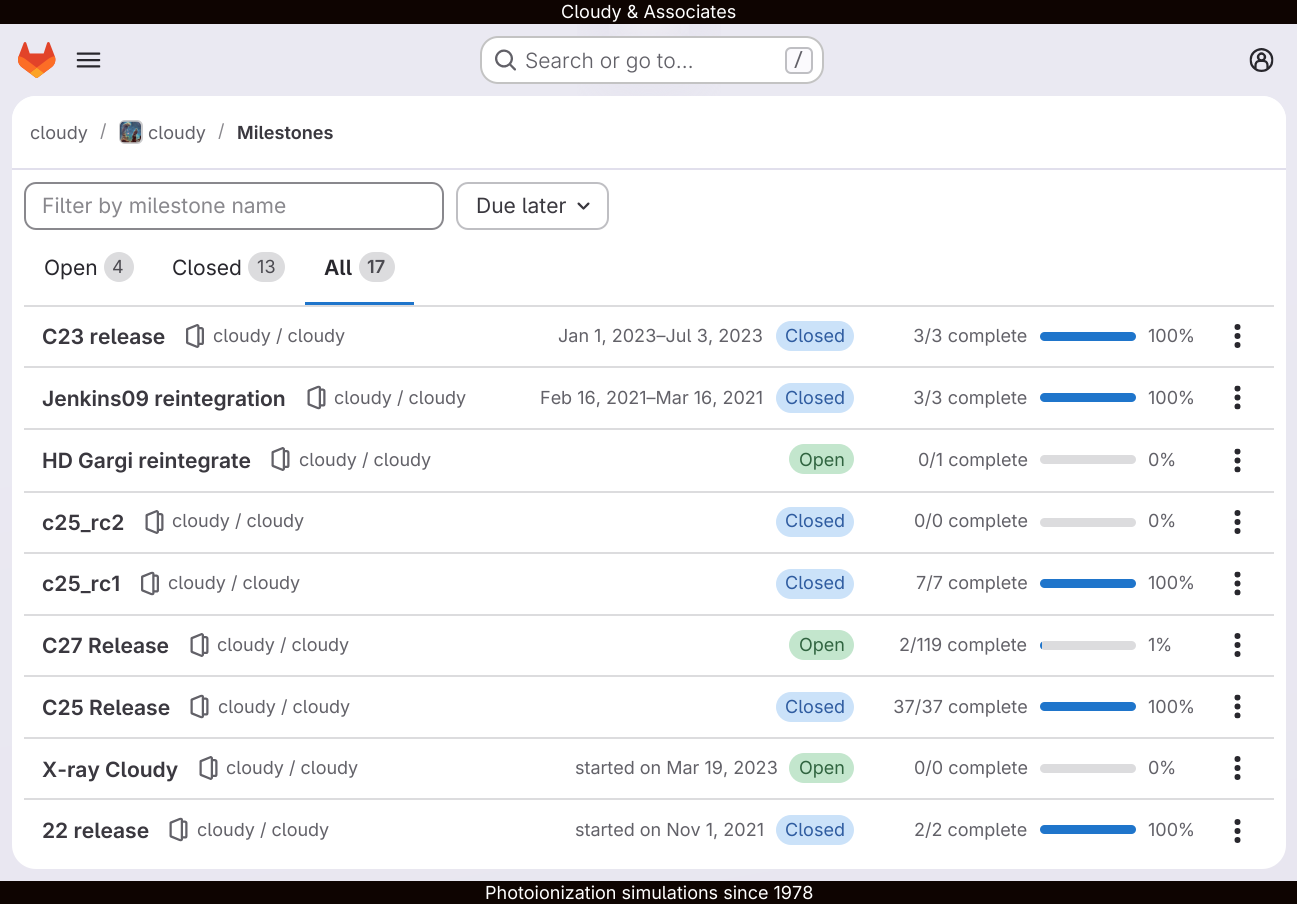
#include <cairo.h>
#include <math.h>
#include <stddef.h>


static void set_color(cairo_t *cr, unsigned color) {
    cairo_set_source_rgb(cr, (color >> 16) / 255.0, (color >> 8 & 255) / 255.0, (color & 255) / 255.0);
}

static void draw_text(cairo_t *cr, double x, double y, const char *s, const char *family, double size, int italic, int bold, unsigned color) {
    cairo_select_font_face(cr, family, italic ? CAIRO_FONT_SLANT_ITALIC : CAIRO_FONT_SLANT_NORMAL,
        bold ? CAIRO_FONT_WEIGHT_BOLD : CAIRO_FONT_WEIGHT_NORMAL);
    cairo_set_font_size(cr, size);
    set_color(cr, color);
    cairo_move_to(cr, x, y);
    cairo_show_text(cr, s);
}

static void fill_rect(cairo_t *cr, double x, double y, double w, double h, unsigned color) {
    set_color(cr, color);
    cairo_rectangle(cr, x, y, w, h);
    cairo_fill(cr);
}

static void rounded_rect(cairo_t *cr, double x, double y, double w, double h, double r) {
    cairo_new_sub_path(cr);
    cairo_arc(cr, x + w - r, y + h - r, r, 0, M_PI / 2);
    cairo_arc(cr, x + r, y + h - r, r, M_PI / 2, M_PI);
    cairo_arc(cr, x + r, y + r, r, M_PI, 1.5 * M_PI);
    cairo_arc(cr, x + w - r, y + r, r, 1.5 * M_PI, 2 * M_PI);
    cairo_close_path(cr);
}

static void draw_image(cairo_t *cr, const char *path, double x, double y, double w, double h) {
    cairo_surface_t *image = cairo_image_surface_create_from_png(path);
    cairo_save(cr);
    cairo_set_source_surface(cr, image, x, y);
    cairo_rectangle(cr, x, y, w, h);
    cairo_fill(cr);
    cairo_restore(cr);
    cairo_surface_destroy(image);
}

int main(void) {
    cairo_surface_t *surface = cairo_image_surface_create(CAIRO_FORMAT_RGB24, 1297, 904);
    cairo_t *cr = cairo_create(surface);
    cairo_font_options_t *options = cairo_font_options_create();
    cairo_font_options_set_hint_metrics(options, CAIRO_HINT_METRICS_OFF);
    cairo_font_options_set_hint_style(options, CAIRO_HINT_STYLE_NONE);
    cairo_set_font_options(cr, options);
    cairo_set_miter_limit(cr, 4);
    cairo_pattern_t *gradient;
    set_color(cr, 0xFFFFFF);
    cairo_paint(cr);
    gradient = cairo_pattern_create_linear(746, 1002, 552, -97);
    cairo_pattern_add_color_stop_rgba(gradient, 0, 0.91, 0.902, 0.941, 1);
    cairo_pattern_add_color_stop_rgba(gradient, 0.7, 0.918, 0.914, 0.949, 1);
    cairo_set_source(cr, gradient);
    cairo_pattern_destroy(gradient);
    cairo_rectangle(cr, 0, 24, 1297, 857);
    cairo_fill(cr);
    gradient = cairo_pattern_create_radial(0, 0, 0, 0, 0, 1);
    cairo_pattern_set_matrix(gradient, &(cairo_matrix_t){1.0 / 649, 0, 0, 1.0 / 905, -1.0 * 649 / 649, -1.0 * 0 / 905});
    cairo_pattern_add_color_stop_rgba(gradient, 0, 0.894, 0.886, 0.929, 1);
    cairo_pattern_add_color_stop_rgba(gradient, 0.16, 0.894, 0.886, 0.929, 0);
    cairo_set_source(cr, gradient);
    cairo_pattern_destroy(gradient);
    cairo_rectangle(cr, 577, 24, 144, 72);
    cairo_fill(cr);
    gradient = cairo_pattern_create_radial(0, 0, 0, 0, 0, 1);
    cairo_pattern_set_matrix(gradient, &(cairo_matrix_t){1.0 / 649, 0, 0, 1.0 / 905, -1.0 * 649 / 649, -1.0 * 0 / 905});
    cairo_pattern_add_color_stop_rgba(gradient, 0, 0.894, 0.886, 0.925, 1);
    cairo_pattern_add_color_stop_rgba(gradient, 0.12, 0.894, 0.886, 0.925, 0);
    cairo_set_source(cr, gradient);
    cairo_pattern_destroy(gradient);
    cairo_rectangle(cr, 617, 24, 64, 10);
    cairo_fill(cr);
    gradient = cairo_pattern_create_radial(649, 0, 0, 649, 0, 1113);
    cairo_pattern_add_color_stop_rgba(gradient, 0, 1, 1, 1, 0.6);
    cairo_pattern_add_color_stop_rgba(gradient, 0.05, 1, 1, 1, 0);
    cairo_set_source(cr, gradient);
    cairo_pattern_destroy(gradient);
    cairo_rectangle(cr, 609, 24, 80, 12);
    cairo_fill(cr);
    fill_rect(cr, 0, 0, 1297, 24, 0x0E0401);
    draw_text(cr, 561, 18, "Cloudy & Associates", "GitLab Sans", 18, 0, 0, 0xFFFFFF);
    draw_image(cr, "assets/img1.png", 18, 42, 38, 36);
    draw_image(cr, "assets/img2.png", 76, 52, 25, 16);
    rounded_rect(cr, 480, 36, 344, 48, 18);
    cairo_fill(cr);
    rounded_rect(cr, 481, 37, 342, 46, 17);
    cairo_set_source_rgba(cr, 0.02, 0.02, 0.024, 0.24);
    cairo_stroke(cr);
    draw_image(cr, "assets/img3.png", 495, 49, 21, 22);
    draw_text(cr, 525, 68, "Search or go to…", "GitLab Sans Light", 21, 0, 0, 0x626168);
    set_color(cr, 0xFBFAFD);
    rounded_rect(cr, 786, 48, 26, 25, 5);
    cairo_fill_preserve(cr);
    set_color(cr, 0xBFBFC3);
    cairo_stroke(cr);
    draw_text(cr, 793, 66, "/", "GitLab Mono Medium", 18, 0, 0, 0x626168);
    draw_image(cr, "assets/img4.png", 1249, 48, 25, 24);
    set_color(cr, 0xFFFFFF);
    rounded_rect(cr, 12, 96, 1274, 773, 24);
    cairo_fill(cr);
    cairo_new_path(cr);
    cairo_move_to(cr, 36, 96);
    cairo_line_to(cr, 1262, 96);
    cairo_curve_to(cr, 1275.5, 96, 1286, 106.5, 1286, 120);
    cairo_line_to(cr, 1286, 170);
    cairo_line_to(cr, 12, 170);
    cairo_line_to(cr, 12, 120);
    cairo_curve_to(cr, 12, 106.5, 22.5, 96, 36, 96);
    cairo_close_path(cr);
    cairo_fill(cr);
    fill_rect(cr, 12, 168, 1274, 2, 0xE1DFEC);
    draw_text(cr, 30, 139, "cloudy", "GitLab Sans", 18, 0, 0, 0x626168);
    draw_text(cr, 100, 137, "/", "GitLab Sans", 18, 0, 0, 0x89888D);
    rounded_rect(cr, 120, 121, 22, 22, 5);
    set_color(cr, 0xDCDCDE);
    cairo_stroke(cr);
    draw_image(cr, "assets/img5.png", 120, 121, 21, 22);
    rounded_rect(cr, 120, 121, 22, 22, 5);
    cairo_set_source_rgba(cr, 0.02, 0.02, 0.024, 0.08);
    cairo_stroke(cr);
    draw_text(cr, 148, 139, "cloudy", "GitLab Sans", 18, 0, 0, 0x626168);
    draw_text(cr, 218, 137, "/", "GitLab Sans", 18, 0, 0, 0x89888D);
    draw_text(cr, 237, 139, "Milestones", "GitLab Sans SemiBold", 18, 0, 0, 0x3A383F);
    fill_rect(cr, 24, 305, 1250, 2, 0xDCDCDE);
    rounded_rect(cr, 25, 183, 418, 46, 11);
    set_color(cr, 0x89888D);
    cairo_stroke(cr);
    draw_text(cr, 42, 213, "Filter by milestone name", "GitLab Sans", 21, 0, 0, 0x89888D);
    rounded_rect(cr, 457, 183, 151, 46, 11);
    set_color(cr, 0xBFBFC3);
    cairo_stroke(cr);
    draw_text(cr, 476, 213, "Due later", "GitLab Sans", 21, 0, 0, 0x3A383F);
    draw_image(cr, "assets/img6.png", 577, 202, 13, 8);
    draw_text(cr, 44, 275, "Open", "GitLab Sans", 21, 0, 0, 0x28272D);
    set_color(cr, 0xDCDCDE);
    cairo_new_path(cr);
    cairo_arc(cr, 119, 267, 15, 0, 2 * M_PI);
    cairo_fill(cr);
    draw_text(cr, 112, 273, "4", "GitLab Sans", 18, 0, 0, 0x4C4B51);
    draw_text(cr, 172, 275, "Closed", "GitLab Sans", 21, 0, 0, 0x28272D);
    set_color(cr, 0xDCDCDE);
    rounded_rect(cr, 248, 252, 37, 30, 15);
    cairo_fill(cr);
    draw_text(cr, 257, 273, "13", "GitLab Sans", 18, 0, 0, 0x4C4B51);
    draw_text(cr, 324, 275, "All", "GitLab Sans SemiBold", 21, 0, 0, 0x28272D);
    set_color(cr, 0xDCDCDE);
    rounded_rect(cr, 359, 252, 36, 30, 15);
    cairo_fill(cr);
    draw_text(cr, 367, 273, "17", "GitLab Sans SemiBold", 18, 0, 0, 0x4C4B51);
    fill_rect(cr, 305, 302, 109, 3, 0x1F75CB);
    fill_rect(cr, 24, 366, 1250, 2, 0xDCDCDE);
    draw_text(cr, 42, 344, "C23 release", "GitLab Sans SemiBold", 21, 0, 0, 0x3A383F);
    draw_image(cr, "assets/img7.png", 186, 324, 18, 24);
    draw_text(cr, 213, 342, "cloudy / cloudy", "GitLab Sans", 18, 0, 0, 0x626168);
    draw_text(cr, 558, 342, "Jan 1, 2023–Jul 3, 2023", "GitLab Sans", 18, 0, 0, 0x626168);
    set_color(cr, 0xCBE2F9);
    rounded_rect(cr, 776, 321, 78, 30, 15);
    cairo_fill(cr);
    draw_text(cr, 785, 342, "Closed", "GitLab Sans", 18, 0, 0, 0x2F5CA0);
    draw_text(cr, 913, 342, "3/3 complete", "GitLab Sans", 18, 0, 0, 0x626168);
    set_color(cr, 0x1F75CB);
    rounded_rect(cr, 1040, 332, 96, 9, 4.5);
    cairo_fill(cr);
    draw_text(cr, 1148, 342, "100%", "GitLab Sans", 18, 0, 0, 0x626168);
    draw_image(cr, "assets/img8.png", 1234, 324, 7, 24);
    fill_rect(cr, 24, 428, 1250, 2, 0xDCDCDE);
    draw_text(cr, 42, 406, "Jenkins09 reintegration", "GitLab Sans SemiBold", 21, 0, 0, 0x3A383F);
    draw_image(cr, "assets/img9.png", 307, 385, 19, 25);
    draw_text(cr, 334, 404, "cloudy / cloudy", "GitLab Sans", 18, 0, 0, 0x626168);
    draw_text(cr, 540, 404, "Feb 16, 2021–Mar 16, 2021", "GitLab Sans", 18, 0, 0, 0x626168);
    set_color(cr, 0xCBE2F9);
    rounded_rect(cr, 776, 383, 78, 30, 15);
    cairo_fill(cr);
    draw_text(cr, 785, 404, "Closed", "GitLab Sans", 18, 0, 0, 0x2F5CA0);
    draw_text(cr, 913, 404, "3/3 complete", "GitLab Sans", 18, 0, 0, 0x626168);
    set_color(cr, 0x1F75CB);
    rounded_rect(cr, 1040, 393, 96, 9, 4.5);
    cairo_fill(cr);
    draw_text(cr, 1148, 404, "100%", "GitLab Sans", 18, 0, 0, 0x626168);
    draw_image(cr, "assets/img10.png", 1234, 385, 7, 25);
    fill_rect(cr, 24, 491, 1250, 2, 0xDCDCDE);
    draw_text(cr, 42, 468, "HD Gargi reintegrate", "GitLab Sans SemiBold", 21, 0, 0, 0x3A383F);
    draw_image(cr, "assets/img11.png", 271, 447, 19, 24);
    draw_text(cr, 299, 466, "cloudy / cloudy", "GitLab Sans", 18, 0, 0, 0x626168);
    set_color(cr, 0xC3E6CD);
    rounded_rect(cr, 789, 444, 65, 30, 15);
    cairo_fill(cr);
    draw_text(cr, 799, 466, "Open", "GitLab Sans", 18, 0, 0, 0x306440);
    draw_text(cr, 918, 466, "0/1 complete", "GitLab Sans", 18, 0, 0, 0x626168);
    set_color(cr, 0xDCDCDE);
    rounded_rect(cr, 1040, 455, 96, 9, 4.5);
    cairo_fill(cr);
    draw_text(cr, 1148, 466, "0%", "GitLab Sans", 18, 0, 0, 0x626168);
    draw_image(cr, "assets/img10.png", 1234, 448, 7, 25);
    fill_rect(cr, 24, 552, 1250, 2, 0xDCDCDE);
    draw_text(cr, 42, 530, "c25_rc2", "GitLab Sans SemiBold", 21, 0, 0, 0x3A383F);
    draw_image(cr, "assets/img12.png", 145, 510, 19, 24);
    draw_text(cr, 172, 527, "cloudy / cloudy", "GitLab Sans", 18, 0, 0, 0x626168);
    set_color(cr, 0xCBE2F9);
    rounded_rect(cr, 776, 507, 78, 30, 15);
    cairo_fill(cr);
    draw_text(cr, 785, 527, "Closed", "GitLab Sans", 18, 0, 0, 0x2F5CA0);
    draw_text(cr, 914, 527, "0/0 complete", "GitLab Sans", 18, 0, 0, 0x626168);
    set_color(cr, 0xDCDCDE);
    rounded_rect(cr, 1040, 518, 96, 9, 4.5);
    cairo_fill(cr);
    draw_text(cr, 1148, 527, "0%", "GitLab Sans", 18, 0, 0, 0x626168);
    draw_image(cr, "assets/img8.png", 1234, 510, 7, 24);
    fill_rect(cr, 24, 614, 1250, 2, 0xDCDCDE);
    draw_text(cr, 42, 591, "c25_rc1", "GitLab Sans SemiBold", 21, 0, 0, 0x3A383F);
    draw_image(cr, "assets/img13.png", 141, 571, 18, 25);
    draw_text(cr, 168, 589, "cloudy / cloudy", "GitLab Sans", 18, 0, 0, 0x626168);
    set_color(cr, 0xCBE2F9);
    rounded_rect(cr, 776, 569, 78, 30, 15);
    cairo_fill(cr);
    draw_text(cr, 785, 589, "Closed", "GitLab Sans", 18, 0, 0, 0x2F5CA0);
    draw_text(cr, 916, 589, "7/7 complete", "GitLab Sans", 18, 0, 0, 0x626168);
    set_color(cr, 0x1F75CB);
    rounded_rect(cr, 1040, 579, 96, 9, 4.5);
    cairo_fill(cr);
    draw_text(cr, 1148, 589, "100%", "GitLab Sans", 18, 0, 0, 0x626168);
    draw_image(cr, "assets/img10.png", 1234, 571, 7, 25);
    fill_rect(cr, 24, 675, 1250, 2, 0xDCDCDE);
    draw_text(cr, 42, 653, "C27 Release", "GitLab Sans SemiBold", 21, 0, 0, 0x3A383F);
    draw_image(cr, "assets/img12.png", 190, 633, 19, 24);
    draw_text(cr, 217, 651, "cloudy / cloudy", "GitLab Sans", 18, 0, 0, 0x626168);
    set_color(cr, 0xC3E6CD);
    rounded_rect(cr, 789, 630, 65, 30, 15);
    cairo_fill(cr);
    draw_text(cr, 799, 651, "Open", "GitLab Sans", 18, 0, 0, 0x306440);
    draw_text(cr, 899, 651, "2/119 complete", "GitLab Sans", 18, 0, 0, 0x626168);
    set_color(cr, 0xDCDCDE);
    rounded_rect(cr, 1040, 641, 96, 9, 4.5);
    cairo_fill(cr);
    cairo_save(cr);
    rounded_rect(cr, 1040, 641, 96, 9, 4.5);
    cairo_clip(cr);
    fill_rect(cr, 1040, 641, 2, 9, 0x1F75CB);
    cairo_restore(cr);
    draw_text(cr, 1148, 651, "1%", "GitLab Sans", 18, 0, 0, 0x626168);
    draw_image(cr, "assets/img8.png", 1234, 633, 7, 24);
    fill_rect(cr, 24, 737, 1250, 2, 0xDCDCDE);
    draw_text(cr, 42, 715, "C25 Release", "GitLab Sans SemiBold", 21, 0, 0, 0x3A383F);
    draw_image(cr, "assets/img9.png", 190, 694, 19, 25);
    draw_text(cr, 218, 713, "cloudy / cloudy", "GitLab Sans", 18, 0, 0, 0x626168);
    set_color(cr, 0xCBE2F9);
    rounded_rect(cr, 776, 692, 78, 30, 15);
    cairo_fill(cr);
    draw_text(cr, 785, 713, "Closed", "GitLab Sans", 18, 0, 0, 0x2F5CA0);
    draw_text(cr, 893, 713, "37/37 complete", "GitLab Sans", 18, 0, 0, 0x626168);
    set_color(cr, 0x1F75CB);
    rounded_rect(cr, 1040, 702, 96, 9, 4.5);
    cairo_fill(cr);
    draw_text(cr, 1148, 713, "100%", "GitLab Sans", 18, 0, 0, 0x626168);
    draw_image(cr, "assets/img10.png", 1234, 694, 7, 25);
    fill_rect(cr, 24, 798, 1250, 2, 0xDCDCDE);
    draw_text(cr, 42, 777, "X-ray Cloudy", "GitLab Sans SemiBold", 21, 0, 0, 0x3A383F);
    draw_image(cr, "assets/img12.png", 199, 756, 19, 24);
    draw_text(cr, 226, 774, "cloudy / cloudy", "GitLab Sans", 18, 0, 0, 0x626168);
    draw_text(cr, 575, 774, "started on Mar 19, 2023", "GitLab Sans", 18, 0, 0, 0x626168);
    set_color(cr, 0xC3E6CD);
    rounded_rect(cr, 789, 753, 65, 30, 15);
    cairo_fill(cr);
    draw_text(cr, 799, 774, "Open", "GitLab Sans", 18, 0, 0, 0x306440);
    draw_text(cr, 914, 774, "0/0 complete", "GitLab Sans", 18, 0, 0, 0x626168);
    set_color(cr, 0xDCDCDE);
    rounded_rect(cr, 1040, 764, 96, 9, 4.5);
    cairo_fill(cr);
    draw_text(cr, 1148, 774, "0%", "GitLab Sans", 18, 0, 0, 0x626168);
    draw_image(cr, "assets/img8.png", 1234, 756, 7, 24);
    draw_text(cr, 42, 838, "22 release", "GitLab Sans SemiBold", 21, 0, 0, 0x3A383F);
    draw_image(cr, "assets/img9.png", 169, 817, 19, 25);
    draw_text(cr, 197, 836, "cloudy / cloudy", "GitLab Sans", 18, 0, 0, 0x626168);
    draw_text(cr, 575, 836, "started on Nov 1, 2021", "GitLab Sans", 18, 0, 0, 0x626168);
    set_color(cr, 0xCBE2F9);
    rounded_rect(cr, 776, 815, 78, 30, 15);
    cairo_fill(cr);
    draw_text(cr, 785, 836, "Closed", "GitLab Sans", 18, 0, 0, 0x2F5CA0);
    draw_text(cr, 914, 836, "2/2 complete", "GitLab Sans", 18, 0, 0, 0x626168);
    set_color(cr, 0x1F75CB);
    rounded_rect(cr, 1040, 825, 96, 9, 4.5);
    cairo_fill(cr);
    draw_text(cr, 1148, 836, "100%", "GitLab Sans", 18, 0, 0, 0x626168);
    draw_image(cr, "assets/img8.png", 1234, 819, 7, 24);
    fill_rect(cr, 0, 881, 1297, 23, 0x0E0401);
    draw_text(cr, 485, 899, "Photoionization simulations since 1978", "GitLab Sans", 18, 0, 0, 0xFFFFFF);
    cairo_surface_write_to_png(surface, "output.png");
    cairo_font_options_destroy(options);
    cairo_destroy(cr);
    cairo_surface_destroy(surface);
    return 0;
}
